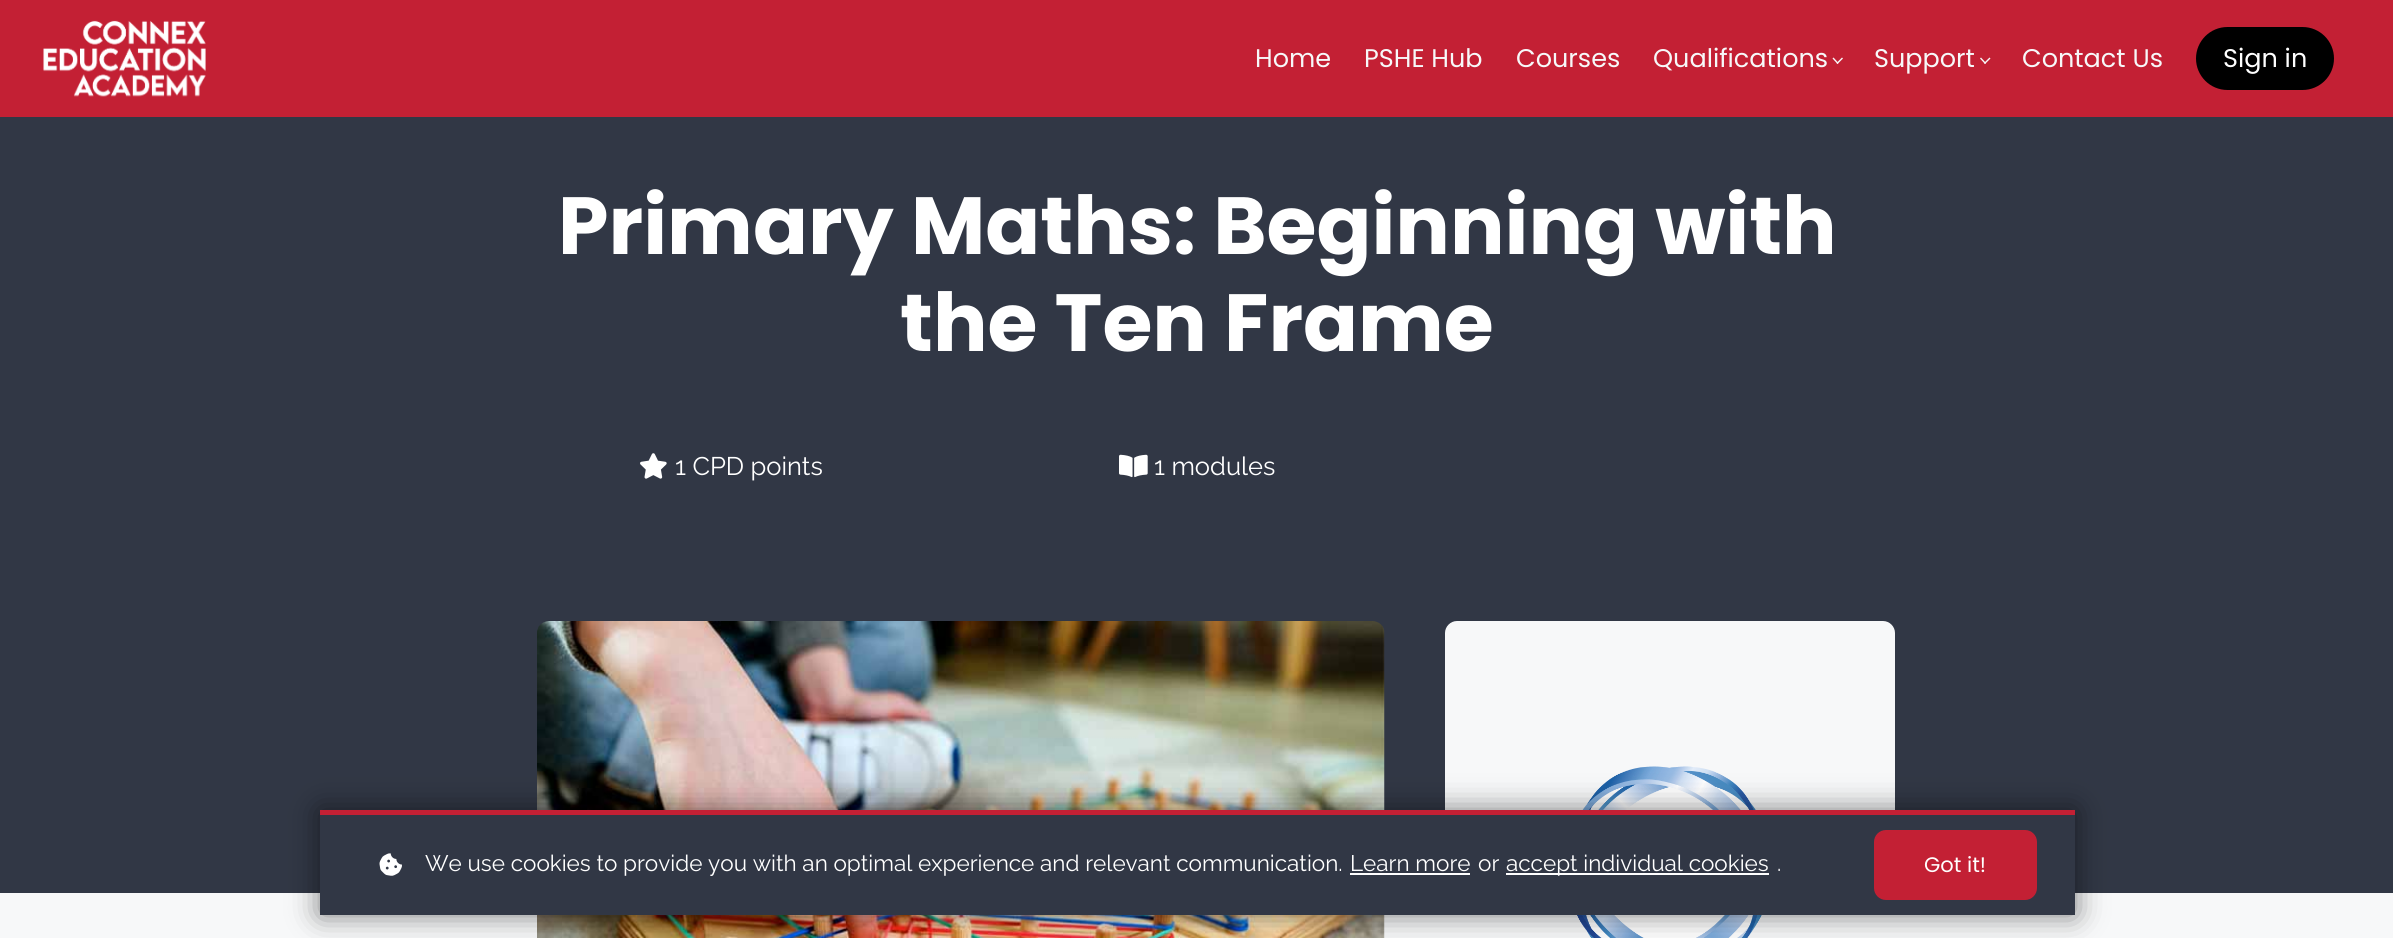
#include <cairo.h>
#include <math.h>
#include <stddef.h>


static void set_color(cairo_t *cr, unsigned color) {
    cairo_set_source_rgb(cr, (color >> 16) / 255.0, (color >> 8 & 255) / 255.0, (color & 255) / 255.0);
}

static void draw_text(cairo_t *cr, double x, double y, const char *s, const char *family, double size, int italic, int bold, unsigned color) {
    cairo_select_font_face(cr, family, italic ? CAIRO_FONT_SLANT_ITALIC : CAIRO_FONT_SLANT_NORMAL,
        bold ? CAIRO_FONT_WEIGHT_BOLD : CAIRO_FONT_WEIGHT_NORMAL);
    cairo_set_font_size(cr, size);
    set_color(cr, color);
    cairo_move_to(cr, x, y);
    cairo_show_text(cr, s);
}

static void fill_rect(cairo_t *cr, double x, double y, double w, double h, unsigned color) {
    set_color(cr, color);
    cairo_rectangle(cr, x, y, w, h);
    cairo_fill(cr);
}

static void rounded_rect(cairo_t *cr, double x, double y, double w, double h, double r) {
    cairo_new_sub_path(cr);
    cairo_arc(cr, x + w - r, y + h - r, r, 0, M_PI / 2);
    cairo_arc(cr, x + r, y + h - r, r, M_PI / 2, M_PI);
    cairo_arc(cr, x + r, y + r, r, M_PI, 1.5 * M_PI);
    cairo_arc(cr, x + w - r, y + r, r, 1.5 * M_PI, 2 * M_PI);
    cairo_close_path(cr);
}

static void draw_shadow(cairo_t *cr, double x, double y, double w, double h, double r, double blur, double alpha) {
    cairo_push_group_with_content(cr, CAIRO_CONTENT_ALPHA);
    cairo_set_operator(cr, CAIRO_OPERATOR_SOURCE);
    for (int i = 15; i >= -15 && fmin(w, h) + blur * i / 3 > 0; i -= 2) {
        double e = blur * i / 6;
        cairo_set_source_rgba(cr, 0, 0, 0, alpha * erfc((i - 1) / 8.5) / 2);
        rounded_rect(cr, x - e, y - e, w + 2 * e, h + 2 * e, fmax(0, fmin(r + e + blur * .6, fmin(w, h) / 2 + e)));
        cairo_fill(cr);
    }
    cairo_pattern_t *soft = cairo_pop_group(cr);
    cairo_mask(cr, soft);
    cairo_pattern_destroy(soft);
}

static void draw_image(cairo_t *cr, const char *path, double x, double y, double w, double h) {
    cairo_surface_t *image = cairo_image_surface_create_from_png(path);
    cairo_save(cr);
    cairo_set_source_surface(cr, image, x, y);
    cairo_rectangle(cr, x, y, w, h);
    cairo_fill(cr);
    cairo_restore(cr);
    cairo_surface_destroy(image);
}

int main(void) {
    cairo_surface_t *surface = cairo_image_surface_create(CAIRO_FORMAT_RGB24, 2393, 938);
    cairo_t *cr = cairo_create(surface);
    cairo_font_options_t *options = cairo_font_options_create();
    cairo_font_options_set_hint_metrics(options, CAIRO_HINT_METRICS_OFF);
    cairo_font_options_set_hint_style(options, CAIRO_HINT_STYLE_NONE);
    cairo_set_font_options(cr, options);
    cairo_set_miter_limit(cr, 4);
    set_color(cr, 0x313745);
    cairo_paint(cr);
    fill_rect(cr, 0, 0, 2393, 117, 0xC32034);
    draw_image(cr, "assets/img1.png", 43, 20, 163, 77);
    draw_text(cr, 1255, 67, "Home", "Poppins", 25.5, 0, 0, 0xF7F8F9);
    draw_text(cr, 1364, 67, "PSHE Hub", "Poppins", 25.5, 0, 0, 0xF7F8F9);
    draw_text(cr, 1516, 67, "Courses", "Poppins", 25.5, 0, 0, 0xF7F8F9);
    draw_text(cr, 1653, 67, "Qualifications", "Poppins", 25.5, 0, 0, 0xF7F8F9);
    cairo_new_path(cr);
    cairo_move_to(cr, 1843, 58.5);
    cairo_line_to(cr, 1837.5, 64);
    cairo_line_to(cr, 1836.5, 63);
    cairo_line_to(cr, 1842, 57.5);
    cairo_close_path(cr);
    cairo_fill(cr);
    cairo_new_path(cr);
    cairo_move_to(cr, 1838.5, 63);
    cairo_line_to(cr, 1837.5, 64);
    cairo_line_to(cr, 1832.5, 58.5);
    cairo_line_to(cr, 1833.5, 57.5);
    cairo_close_path(cr);
    cairo_fill(cr);
    draw_text(cr, 1874, 67, "Support", "Poppins", 25.5, 0, 0, 0xF7F8F9);
    cairo_new_path(cr);
    cairo_move_to(cr, 1990.5, 58.5);
    cairo_line_to(cr, 1985, 64);
    cairo_line_to(cr, 1984, 63);
    cairo_line_to(cr, 1989.5, 57.5);
    cairo_close_path(cr);
    cairo_fill(cr);
    cairo_new_path(cr);
    cairo_move_to(cr, 1986, 63);
    cairo_line_to(cr, 1985, 64);
    cairo_line_to(cr, 1980, 58.5);
    cairo_line_to(cr, 1981, 57.5);
    cairo_close_path(cr);
    cairo_fill(cr);
    draw_text(cr, 2022, 67, "Contact Us", "Poppins", 25.5, 0, 0, 0xF7F8F9);
    set_color(cr, 0x000000);
    rounded_rect(cr, 2196, 27, 138, 63, 31.5);
    cairo_fill(cr);
    draw_text(cr, 2223, 67, "Sign in", "Poppins", 25.5, 0, 0, 0xFFFFFF);
    draw_text(cr, 558, 254, "Primary Maths: Beginning with", "Poppins", 81, 0, 1, 0xFFFFFF);
    draw_text(cr, 900, 351, "the Ten Frame", "Poppins", 81, 0, 1, 0xFFFFFF);
    draw_image(cr, "assets/img2.png", 640, 453, 27, 26);
    draw_text(cr, 675, 475, "1 CPD points", "Raleway", 25.5, 0, 0, 0xFFFFFF);
    draw_image(cr, "assets/img3.png", 1119, 454, 29, 24);
    draw_text(cr, 1154, 475, "1 modules", "Raleway", 25.5, 0, 0, 0xFFFFFF);
    fill_rect(cr, 0, 893, 2393, 45, 0xF7F8F9);
    draw_image(cr, "assets/img4.png", 537, 621, 848, 317);
    cairo_new_path(cr);
    cairo_move_to(cr, 1457, 621);
    cairo_line_to(cr, 1883, 621);
    cairo_curve_to(cr, 1889.5, 621, 1895, 626.5, 1895, 633);
    cairo_line_to(cr, 1895, 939);
    cairo_line_to(cr, 1445, 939);
    cairo_line_to(cr, 1445, 633);
    cairo_curve_to(cr, 1445, 626.5, 1450.5, 621, 1457, 621);
    cairo_close_path(cr);
    cairo_fill(cr);
    draw_image(cr, "assets/img5.png", 1577, 766, 185, 172);
    set_color(cr, 0x000000);
    draw_shadow(cr, 320, 810, 1755, 105, 0, 15, 0.5);
    fill_rect(cr, 320, 815, 1755, 100, 0x313745);
    fill_rect(cr, 320, 810, 1755, 5, 0xC32034);
    draw_image(cr, "assets/img6.png", 379, 853, 23, 23);
    draw_text(cr, 425, 871, "We use cookies to provide you with an optimal experience and relevant communication.", "Raleway", 22.5, 0, 0, 0xFFFFFF);
    draw_text(cr, 1350, 871, "Learn more", "Raleway", 22.5, 0, 0, 0xFFFFFF);
    fill_rect(cr, 1350, 873, 120, 2, 0xFFFFFF);
    draw_text(cr, 1478, 871, "or", "Raleway", 22.5, 0, 0, 0xFFFFFF);
    fill_rect(cr, 1506, 873, 263, 2, 0xFFFFFF);
    draw_text(cr, 1506, 871, "accept individual cookies", "Raleway", 22.5, 0, 0, 0xFFFFFF);
    draw_text(cr, 1777, 871, ".", "Raleway", 22.5, 0, 0, 0xFFFFFF);
    set_color(cr, 0xC32034);
    rounded_rect(cr, 1874, 830, 163, 70, 12);
    cairo_fill(cr);
    draw_text(cr, 1924, 872, "Got it!", "Poppins", 21, 0, 0, 0xFFFFFF);
    cairo_surface_write_to_png(surface, "output.png");
    cairo_font_options_destroy(options);
    cairo_destroy(cr);
    cairo_surface_destroy(surface);
    return 0;
}
